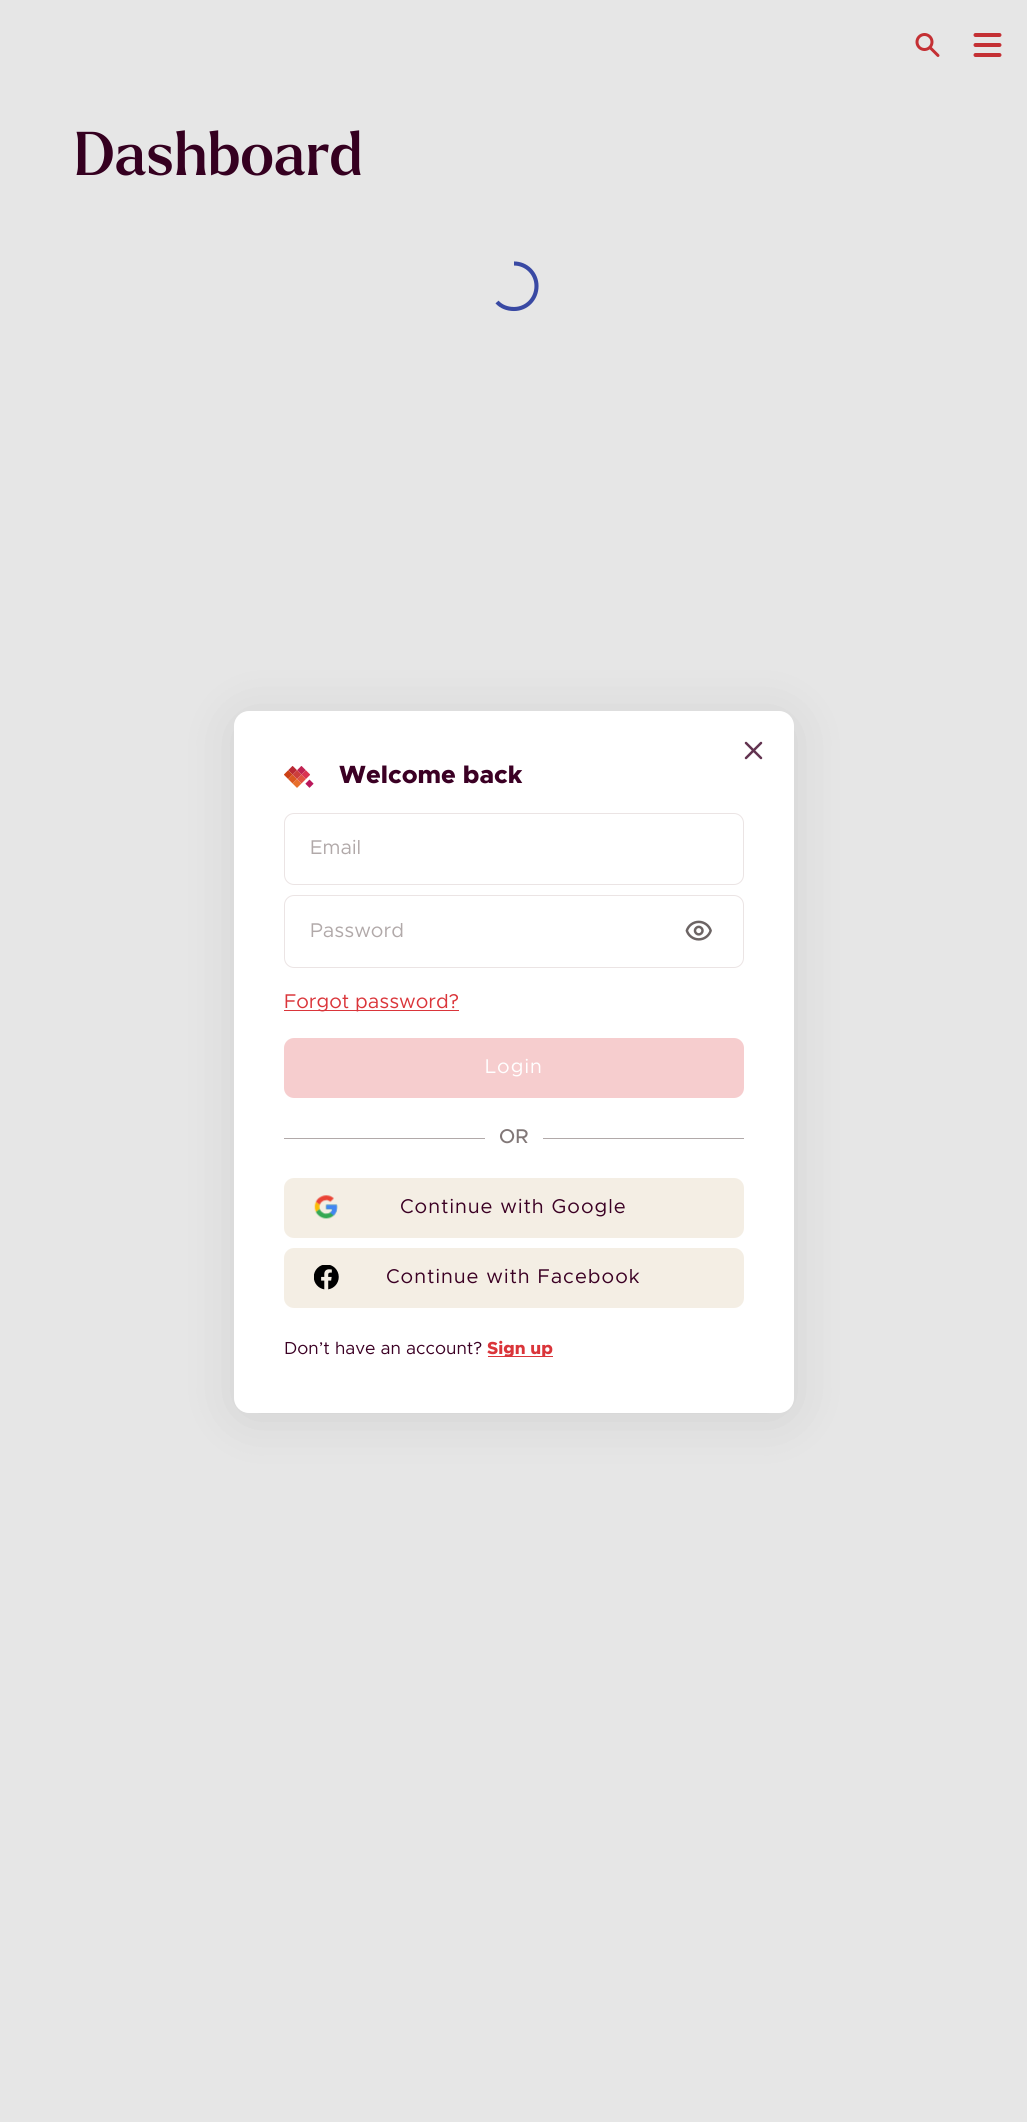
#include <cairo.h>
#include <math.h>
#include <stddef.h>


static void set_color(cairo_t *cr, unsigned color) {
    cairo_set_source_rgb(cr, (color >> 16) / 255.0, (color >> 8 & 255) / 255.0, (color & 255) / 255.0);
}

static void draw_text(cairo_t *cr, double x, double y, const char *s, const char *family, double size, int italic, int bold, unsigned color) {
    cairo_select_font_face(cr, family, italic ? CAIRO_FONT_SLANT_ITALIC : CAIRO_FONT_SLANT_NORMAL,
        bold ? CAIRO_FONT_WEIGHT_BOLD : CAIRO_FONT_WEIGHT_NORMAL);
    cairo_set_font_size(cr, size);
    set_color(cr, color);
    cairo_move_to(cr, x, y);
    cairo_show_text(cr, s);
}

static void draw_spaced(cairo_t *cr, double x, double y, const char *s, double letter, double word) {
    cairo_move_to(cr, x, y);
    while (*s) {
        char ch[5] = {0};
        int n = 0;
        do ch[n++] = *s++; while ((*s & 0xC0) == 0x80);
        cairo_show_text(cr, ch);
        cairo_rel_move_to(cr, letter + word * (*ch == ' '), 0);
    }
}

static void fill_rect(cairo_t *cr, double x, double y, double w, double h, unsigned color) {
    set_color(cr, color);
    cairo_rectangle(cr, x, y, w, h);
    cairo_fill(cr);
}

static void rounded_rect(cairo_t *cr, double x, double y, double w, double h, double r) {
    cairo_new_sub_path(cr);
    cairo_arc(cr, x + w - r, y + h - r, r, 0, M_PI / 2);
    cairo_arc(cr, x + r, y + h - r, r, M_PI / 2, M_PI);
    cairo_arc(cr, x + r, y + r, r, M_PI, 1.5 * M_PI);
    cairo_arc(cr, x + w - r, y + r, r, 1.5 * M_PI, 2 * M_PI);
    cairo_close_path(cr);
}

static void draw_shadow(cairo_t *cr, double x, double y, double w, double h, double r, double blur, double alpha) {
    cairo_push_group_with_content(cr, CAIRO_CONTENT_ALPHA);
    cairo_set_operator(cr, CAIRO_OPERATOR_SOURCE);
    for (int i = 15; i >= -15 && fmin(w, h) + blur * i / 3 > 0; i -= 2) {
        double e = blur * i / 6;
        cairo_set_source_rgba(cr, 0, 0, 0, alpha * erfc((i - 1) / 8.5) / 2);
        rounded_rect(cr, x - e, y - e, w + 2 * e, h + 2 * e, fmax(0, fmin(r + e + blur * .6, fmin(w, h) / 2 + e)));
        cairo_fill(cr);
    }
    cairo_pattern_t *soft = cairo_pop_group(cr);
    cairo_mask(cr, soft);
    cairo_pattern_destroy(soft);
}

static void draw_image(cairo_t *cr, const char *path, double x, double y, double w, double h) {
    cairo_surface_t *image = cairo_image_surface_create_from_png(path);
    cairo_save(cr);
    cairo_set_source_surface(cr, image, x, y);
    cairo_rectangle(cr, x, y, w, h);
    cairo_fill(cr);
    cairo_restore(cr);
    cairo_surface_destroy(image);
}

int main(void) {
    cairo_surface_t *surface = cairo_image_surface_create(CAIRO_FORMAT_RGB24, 1027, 2122);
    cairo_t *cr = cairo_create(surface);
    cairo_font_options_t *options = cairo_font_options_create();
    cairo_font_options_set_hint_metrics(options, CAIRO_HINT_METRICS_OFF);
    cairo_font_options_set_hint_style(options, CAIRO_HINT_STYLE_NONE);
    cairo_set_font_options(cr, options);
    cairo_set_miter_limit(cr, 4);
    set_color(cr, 0xE6E6E6);
    cairo_paint(cr);
    draw_image(cr, "assets/img1.png", 915, 33, 25, 24);
    draw_image(cr, "assets/img2.png", 973, 33, 29, 24);
    draw_text(cr, 74, 175, "Dashboard", "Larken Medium", 60, 0, 0, 0x350020);
    cairo_new_path(cr);
    cairo_move_to(cr, 514, 263.5);
    cairo_curve_to(cr, 526.5, 263.5, 536.5, 273.5, 536.5, 286);
    cairo_curve_to(cr, 536.5, 299, 526.5, 309, 514, 309);
    cairo_curve_to(cr, 507, 309, 501, 306.5, 497, 302);
    set_color(cr, 0x3949A3);
    cairo_set_line_width(cr, 4.1);
    cairo_stroke(cr);
    set_color(cr, 0x000000);
    draw_shadow(cr, 234, 716, 560, 702, 15, 25, 0.1);
    set_color(cr, 0xFFFFFF);
    rounded_rect(cr, 234, 711, 560, 702, 15);
    cairo_fill(cr);
    cairo_new_path(cr);
    cairo_move_to(cr, 746, 758);
    cairo_line_to(cr, 761, 743);
    cairo_move_to(cr, 746, 743);
    cairo_line_to(cr, 761, 758);
    set_color(cr, 0x623350);
    cairo_set_line_width(cr, 2.5);
    cairo_set_line_cap(cr, CAIRO_LINE_CAP_ROUND);
    cairo_set_line_join(cr, CAIRO_LINE_JOIN_ROUND);
    cairo_stroke(cr);
    draw_image(cr, "assets/img3.png", 284, 766, 30, 22);
    draw_text(cr, 339, 783, "Welcome back", "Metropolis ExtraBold", 25, 0, 0, 0x3B0024);
    rounded_rect(cr, 284.5, 813.5, 459, 71, 9.5);
    set_color(cr, 0xEBE4E4);
    cairo_set_line_width(cr, 1);
    cairo_set_line_cap(cr, CAIRO_LINE_CAP_BUTT);
    cairo_set_line_join(cr, CAIRO_LINE_JOIN_MITER);
    cairo_stroke(cr);
    draw_text(cr, 310, 854, "Email", "Metropolis", 20, 0, 0, 0xB1A9A9);
    rounded_rect(cr, 284.5, 895.5, 459, 72, 9.5);
    set_color(cr, 0xEBE4E4);
    cairo_stroke(cr);
    draw_text(cr, 310, 937, "Password", "Metropolis", 20, 0, 0, 0xB1A9A9);
    draw_image(cr, "assets/img4.png", 685, 920, 27, 21);
    fill_rect(cr, 284, 1010, 175, 1, 0xDA353A);
    draw_text(cr, 284, 1008, "Forgot password?", "Metropolis", 20, 0, 0, 0xDA353A);
    set_color(cr, 0xF6CDCE);
    rounded_rect(cr, 284, 1038, 460, 60, 10);
    cairo_fill(cr);
    set_color(cr, 0xFFFFFF);
    draw_spaced(cr, 485, 1073, "Login", 1, 0);
    fill_rect(cr, 284, 1138, 201, 1, 0xB1A9A9);
    draw_text(cr, 499, 1143, "OR", "Metropolis Medium", 20, 0, 0, 0x817777);
    fill_rect(cr, 543, 1138, 201, 1, 0xB1A9A9);
    set_color(cr, 0xF4EEE4);
    rounded_rect(cr, 284, 1178, 460, 60, 10);
    cairo_fill(cr);
    draw_image(cr, "assets/img5.png", 314, 1195, 24, 24);
    cairo_select_font_face(cr, "Metropolis", CAIRO_FONT_SLANT_NORMAL, CAIRO_FONT_WEIGHT_NORMAL);
    set_color(cr, 0x3B0024);
    draw_spaced(cr, 400, 1213, "Continue with Google", 1, 0);
    set_color(cr, 0xF4EEE4);
    rounded_rect(cr, 284, 1248, 460, 60, 10);
    cairo_fill(cr);
    draw_image(cr, "assets/img6.png", 314, 1265, 25, 25);
    set_color(cr, 0x3B0024);
    draw_spaced(cr, 386, 1283, "Continue with Facebook", 1, 0);
    draw_text(cr, 284, 1354, "Don’t have an account?", "Metropolis", 17.5, 0, 0, 0x3B0024);
    fill_rect(cr, 488, 1356, 65, 1, 0xDA353A);
    draw_text(cr, 487, 1354, "Sign up", "Metropolis ExtraBold", 17.5, 0, 0, 0xDA353A);
    cairo_surface_write_to_png(surface, "output.png");
    cairo_font_options_destroy(options);
    cairo_destroy(cr);
    cairo_surface_destroy(surface);
    return 0;
}
